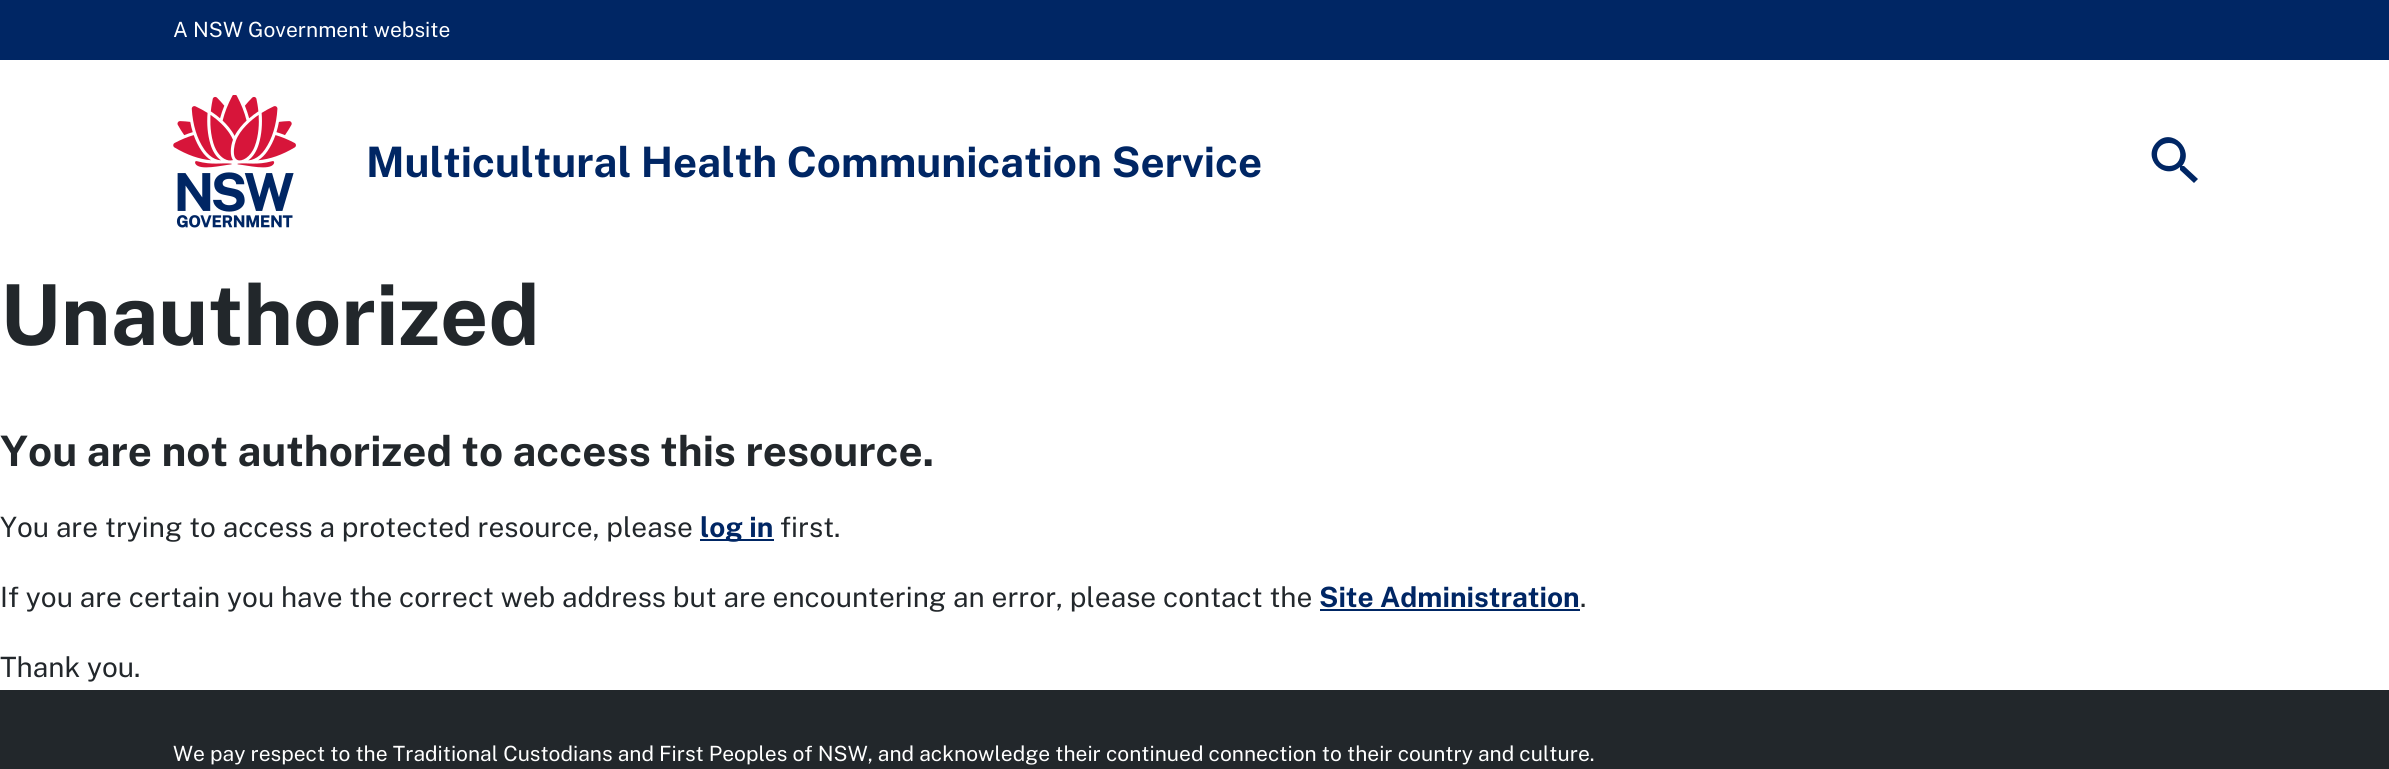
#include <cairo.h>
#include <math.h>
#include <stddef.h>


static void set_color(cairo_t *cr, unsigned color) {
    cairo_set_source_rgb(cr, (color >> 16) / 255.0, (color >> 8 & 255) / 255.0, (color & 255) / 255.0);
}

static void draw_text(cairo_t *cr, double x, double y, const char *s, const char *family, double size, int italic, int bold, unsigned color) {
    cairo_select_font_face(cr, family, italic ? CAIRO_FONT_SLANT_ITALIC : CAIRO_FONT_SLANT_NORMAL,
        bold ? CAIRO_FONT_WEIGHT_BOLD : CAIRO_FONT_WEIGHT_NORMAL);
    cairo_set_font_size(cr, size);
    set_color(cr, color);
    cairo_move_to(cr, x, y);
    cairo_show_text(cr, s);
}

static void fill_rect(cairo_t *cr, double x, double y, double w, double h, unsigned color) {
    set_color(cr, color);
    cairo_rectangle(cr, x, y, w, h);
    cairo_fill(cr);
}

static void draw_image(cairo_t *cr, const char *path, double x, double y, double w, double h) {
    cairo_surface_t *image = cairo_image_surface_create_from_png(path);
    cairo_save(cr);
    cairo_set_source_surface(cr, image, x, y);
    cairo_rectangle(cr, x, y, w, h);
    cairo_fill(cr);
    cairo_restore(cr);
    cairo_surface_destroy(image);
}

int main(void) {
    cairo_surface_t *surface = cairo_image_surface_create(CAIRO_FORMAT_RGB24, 2389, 769);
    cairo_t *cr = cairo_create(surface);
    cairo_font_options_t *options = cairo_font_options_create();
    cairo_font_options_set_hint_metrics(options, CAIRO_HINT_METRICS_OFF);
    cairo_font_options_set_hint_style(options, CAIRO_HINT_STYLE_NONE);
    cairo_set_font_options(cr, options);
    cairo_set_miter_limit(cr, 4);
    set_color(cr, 0xFFFFFF);
    cairo_paint(cr);
    fill_rect(cr, 0, 0, 2389, 60, 0x002664);
    draw_text(cr, 173, 37, "A NSW Government website", "Public Sans Thin", 21, 0, 0, 0xFFFFFF);
    draw_image(cr, "assets/img1.png", 173, 95, 123, 133);
    draw_text(cr, 366, 177, "Multicultural Health Communication Service", "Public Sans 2 Thin", 42, 0, 0, 0x002664);
    cairo_new_path(cr);
    cairo_move_to(cr, 2184, 166);
    cairo_line_to(cr, 2182, 166);
    cairo_curve_to(cr, 2195, 150, 2172, 127, 2157, 142);
    cairo_curve_to(cr, 2141, 158, 2164, 181, 2180, 167);
    cairo_line_to(cr, 2180, 168);
    cairo_line_to(cr, 2180, 170);
    cairo_line_to(cr, 2194, 183);
    cairo_line_to(cr, 2198, 179);
    cairo_close_path(cr);
    cairo_move_to(cr, 2169, 166);
    cairo_curve_to(cr, 2153, 166, 2153, 143, 2169, 143);
    cairo_curve_to(cr, 2184, 143, 2184, 166, 2169, 166);
    cairo_close_path(cr);
    cairo_fill(cr);
    draw_text(cr, 0, 345, "Unauthorized", "Public Sans 2 Thin", 84, 0, 0, 0x22272B);
    draw_text(cr, 0, 466, "You are not authorized to access this resource.", "Public Sans 2 Thin", 42, 0, 0, 0x22272B);
    draw_text(cr, 0, 537, "You are trying to access a protected resource, please", "Public Sans Thin", 28, 0, 0, 0x22272B);
    fill_rect(cr, 700, 539, 74, 2, 0x002664);
    draw_text(cr, 700, 537, "log in", "Public Sans 2 Thin", 28, 0, 0, 0x002664);
    draw_text(cr, 780, 537, "first.", "Public Sans Thin", 28, 0, 0, 0x22272B);
    draw_text(cr, 0, 607, "If you are certain you have the correct web address but are encountering an error, please contact the", "Public Sans Thin", 28, 0, 0, 0x22272B);
    draw_text(cr, 1319, 607, "Site Administration", "Public Sans 2 Thin", 28, 0, 0, 0x002664);
    fill_rect(cr, 1320, 609, 260, 2, 0x002664);
    draw_text(cr, 1580, 607, ".", "Public Sans Thin", 28, 0, 0, 0x22272B);
    draw_text(cr, 0, 677, "Thank you.", "Public Sans Thin", 28, 0, 0, 0x22272B);
    fill_rect(cr, 0, 690, 2389, 79, 0x22272B);
    draw_text(cr, 173, 761, "We pay respect to the Traditional Custodians and First Peoples of NSW, and acknowledge their continued connection to their country and culture.", "Public Sans Thin", 21, 0, 0, 0xFFFFFF);
    cairo_surface_write_to_png(surface, "output.png");
    cairo_font_options_destroy(options);
    cairo_destroy(cr);
    cairo_surface_destroy(surface);
    return 0;
}
